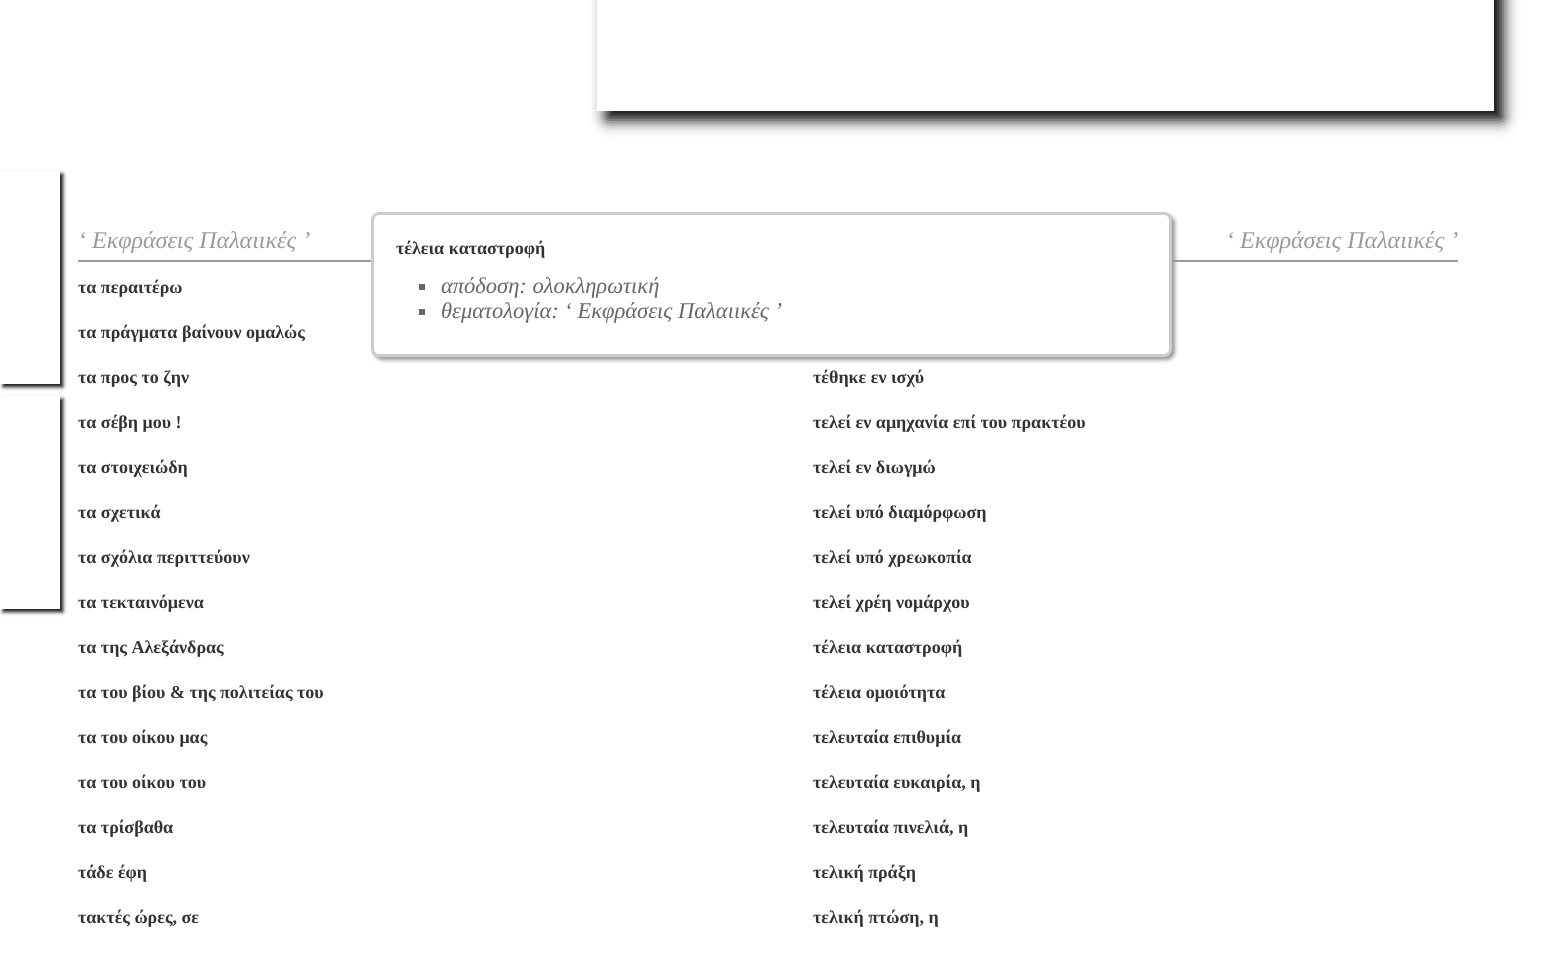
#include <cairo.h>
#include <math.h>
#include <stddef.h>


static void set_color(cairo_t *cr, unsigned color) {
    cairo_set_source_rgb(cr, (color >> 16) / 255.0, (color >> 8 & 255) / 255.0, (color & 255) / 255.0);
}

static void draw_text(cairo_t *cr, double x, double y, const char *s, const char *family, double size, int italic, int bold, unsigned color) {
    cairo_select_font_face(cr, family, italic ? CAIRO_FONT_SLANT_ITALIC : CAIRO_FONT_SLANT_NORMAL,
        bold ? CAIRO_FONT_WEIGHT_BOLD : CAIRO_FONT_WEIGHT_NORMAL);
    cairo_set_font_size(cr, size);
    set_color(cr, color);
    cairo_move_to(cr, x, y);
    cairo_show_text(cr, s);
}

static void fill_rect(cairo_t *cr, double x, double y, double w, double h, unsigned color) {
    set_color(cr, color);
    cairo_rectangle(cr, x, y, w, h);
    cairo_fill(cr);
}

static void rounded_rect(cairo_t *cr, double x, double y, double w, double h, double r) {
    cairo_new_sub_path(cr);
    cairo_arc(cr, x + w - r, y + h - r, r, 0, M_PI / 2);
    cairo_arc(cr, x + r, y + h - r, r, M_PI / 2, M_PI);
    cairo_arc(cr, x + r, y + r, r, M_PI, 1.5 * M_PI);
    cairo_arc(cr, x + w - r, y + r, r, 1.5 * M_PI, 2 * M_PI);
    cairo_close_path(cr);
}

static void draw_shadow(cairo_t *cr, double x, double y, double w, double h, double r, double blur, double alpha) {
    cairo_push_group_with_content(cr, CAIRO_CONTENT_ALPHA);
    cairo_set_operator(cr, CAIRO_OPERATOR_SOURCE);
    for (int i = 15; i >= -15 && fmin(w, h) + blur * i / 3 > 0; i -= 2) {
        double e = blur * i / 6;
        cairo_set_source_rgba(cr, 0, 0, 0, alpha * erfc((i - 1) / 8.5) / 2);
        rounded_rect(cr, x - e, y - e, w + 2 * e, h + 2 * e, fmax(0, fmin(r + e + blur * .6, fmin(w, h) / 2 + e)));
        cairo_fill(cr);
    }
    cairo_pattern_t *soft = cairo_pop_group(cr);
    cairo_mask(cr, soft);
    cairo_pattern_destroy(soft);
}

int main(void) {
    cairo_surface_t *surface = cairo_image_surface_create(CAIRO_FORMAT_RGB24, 1541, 958);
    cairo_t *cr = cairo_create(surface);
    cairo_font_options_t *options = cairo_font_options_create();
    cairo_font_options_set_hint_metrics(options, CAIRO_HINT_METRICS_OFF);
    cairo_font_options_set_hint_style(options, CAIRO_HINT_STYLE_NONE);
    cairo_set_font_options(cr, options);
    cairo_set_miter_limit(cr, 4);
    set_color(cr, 0xFFFFFF);
    cairo_paint(cr);
    cairo_save(cr);
    cairo_set_fill_rule(cr, CAIRO_FILL_RULE_EVEN_ODD);
    cairo_new_path(cr);
    cairo_move_to(cr, 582, 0);
    cairo_line_to(cr, 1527, 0);
    cairo_line_to(cr, 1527, 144);
    cairo_line_to(cr, 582, 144);
    cairo_close_path(cr);
    cairo_move_to(cr, 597, -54);
    cairo_line_to(cr, 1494, -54);
    cairo_line_to(cr, 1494, 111);
    cairo_line_to(cr, 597, 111);
    cairo_close_path(cr);
    cairo_clip(cr);
    set_color(cr, 0x000000);
    draw_shadow(cr, 606, -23, 897, 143, 0, 7.5, 1);
    cairo_restore(cr);
    cairo_save(cr);
    cairo_set_fill_rule(cr, CAIRO_FILL_RULE_EVEN_ODD);
    cairo_new_path(cr);
    cairo_move_to(cr, 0, 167);
    cairo_line_to(cr, 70, 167);
    cairo_line_to(cr, 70, 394);
    cairo_line_to(cr, 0, 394);
    cairo_close_path(cr);
    cairo_move_to(cr, 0, 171);
    cairo_line_to(cr, 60, 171);
    cairo_line_to(cr, 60, 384);
    cairo_line_to(cr, 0, 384);
    cairo_close_path(cr);
    cairo_clip(cr);
    set_color(cr, 0x111111);
    draw_shadow(cr, 3, 174, 60, 213, 0, 2, 1);
    cairo_restore(cr);
    fill_rect(cr, 78, 260, 293, 2, 0x999999);
    draw_text(cr, 78, 248, "‘ Εκφράσεις Παλαιικές ’", "Liberation Serif", 24, 1, 0, 0x999999);
    draw_text(cr, 78, 293, "τα περαιτέρω", "Liberation Serif", 18, 0, 1, 0x333333);
    draw_text(cr, 78, 338, "τα πράγματα βαίνουν ομαλώς", "Liberation Serif", 18, 0, 1, 0x333333);
    draw_text(cr, 78, 383, "τα προς το ζην", "Liberation Serif", 18, 0, 1, 0x333333);
    draw_text(cr, 78, 428, "τα σέβη μου !", "Liberation Serif", 18, 0, 1, 0x333333);
    draw_text(cr, 78, 473, "τα στοιχειώδη", "Liberation Serif", 18, 0, 1, 0x333333);
    draw_text(cr, 78, 518, "τα σχετικά", "Liberation Serif", 18, 0, 1, 0x333333);
    draw_text(cr, 78, 563, "τα σχόλια περιττεύουν", "Liberation Serif", 18, 0, 1, 0x333333);
    draw_text(cr, 78, 608, "τα τεκταινόμενα", "Liberation Serif", 18, 0, 1, 0x333333);
    draw_text(cr, 78, 653, "τα της Αλεξάνδρας", "Liberation Serif", 18, 0, 1, 0x333333);
    draw_text(cr, 78, 698, "τα του βίου & της πολιτείας του", "Liberation Serif", 18, 0, 1, 0x333333);
    draw_text(cr, 78, 743, "τα του οίκου μας", "Liberation Serif", 18, 0, 1, 0x333333);
    draw_text(cr, 78, 788, "τα του οίκου του", "Liberation Serif", 18, 0, 1, 0x333333);
    draw_text(cr, 78, 833, "τα τρίσβαθα", "Liberation Serif", 18, 0, 1, 0x333333);
    draw_text(cr, 78, 878, "τάδε έφη", "Liberation Serif", 18, 0, 1, 0x333333);
    draw_text(cr, 78, 923, "τακτές ώρες, σε", "Liberation Serif", 18, 0, 1, 0x333333);
    fill_rect(cr, 1172, 260, 286, 2, 0x999999);
    draw_text(cr, 1226, 248, "‘ Εκφράσεις Παλαιικές ’", "Liberation Serif", 24, 1, 0, 0x999999);
    draw_text(cr, 813, 383, "τέθηκε εν ισχύ", "Liberation Serif", 18, 0, 1, 0x333333);
    draw_text(cr, 813, 428, "τελεί εν αμηχανία επί του πρακτέου", "Liberation Serif", 18, 0, 1, 0x333333);
    draw_text(cr, 813, 473, "τελεί εν διωγμώ", "Liberation Serif", 18, 0, 1, 0x333333);
    draw_text(cr, 813, 518, "τελεί υπό διαμόρφωση", "Liberation Serif", 18, 0, 1, 0x333333);
    draw_text(cr, 813, 563, "τελεί υπό χρεωκοπία", "Liberation Serif", 18, 0, 1, 0x333333);
    draw_text(cr, 813, 608, "τελεί χρέη νομάρχου", "Liberation Serif", 18, 0, 1, 0x333333);
    draw_text(cr, 813, 653, "τέλεια καταστροφή", "Liberation Serif", 18, 0, 1, 0x333333);
    draw_text(cr, 813, 698, "τέλεια ομοιότητα", "Liberation Serif", 18, 0, 1, 0x333333);
    draw_text(cr, 813, 743, "τελευταία επιθυμία", "Liberation Serif", 18, 0, 1, 0x333333);
    draw_text(cr, 813, 788, "τελευταία ευκαιρία, η", "Liberation Serif", 18, 0, 1, 0x333333);
    draw_text(cr, 813, 833, "τελευταία πινελιά, η", "Liberation Serif", 18, 0, 1, 0x333333);
    draw_text(cr, 813, 878, "τελική πράξη", "Liberation Serif", 18, 0, 1, 0x333333);
    draw_text(cr, 813, 923, "τελική πτώση, η", "Liberation Serif", 18, 0, 1, 0x333333);
    set_color(cr, 0x999999);
    draw_shadow(cr, 374, 215, 801, 145, 8, 2, 1);
    set_color(cr, 0xFFFFFF);
    rounded_rect(cr, 372.5, 213.5, 798, 142, 6.5);
    cairo_fill_preserve(cr);
    set_color(cr, 0xCCCCCC);
    cairo_set_line_width(cr, 3);
    cairo_stroke(cr);
    draw_text(cr, 396, 254, "τέλεια καταστροφή", "Liberation Serif", 18, 0, 1, 0x333333);
    fill_rect(cr, 419, 284, 6, 6, 0x666666);
    draw_text(cr, 441, 293, "απόδοση: ολοκληρωτική", "Liberation Serif", 22.5, 1, 0, 0x666666);
    fill_rect(cr, 419, 309, 6, 6, 0x666666);
    draw_text(cr, 441, 318, "θεματολογία: ‘ Εκφράσεις Παλαιικές ’", "Liberation Serif", 22.5, 1, 0, 0x666666);
    cairo_save(cr);
    cairo_set_fill_rule(cr, CAIRO_FILL_RULE_EVEN_ODD);
    cairo_new_path(cr);
    cairo_move_to(cr, 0, 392);
    cairo_line_to(cr, 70, 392);
    cairo_line_to(cr, 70, 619);
    cairo_line_to(cr, 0, 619);
    cairo_close_path(cr);
    cairo_move_to(cr, 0, 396);
    cairo_line_to(cr, 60, 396);
    cairo_line_to(cr, 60, 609);
    cairo_line_to(cr, 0, 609);
    cairo_close_path(cr);
    cairo_clip(cr);
    set_color(cr, 0x111111);
    draw_shadow(cr, 3, 399, 60, 213, 0, 2, 1);
    cairo_restore(cr);
    cairo_surface_write_to_png(surface, "output.png");
    cairo_font_options_destroy(options);
    cairo_destroy(cr);
    cairo_surface_destroy(surface);
    return 0;
}
